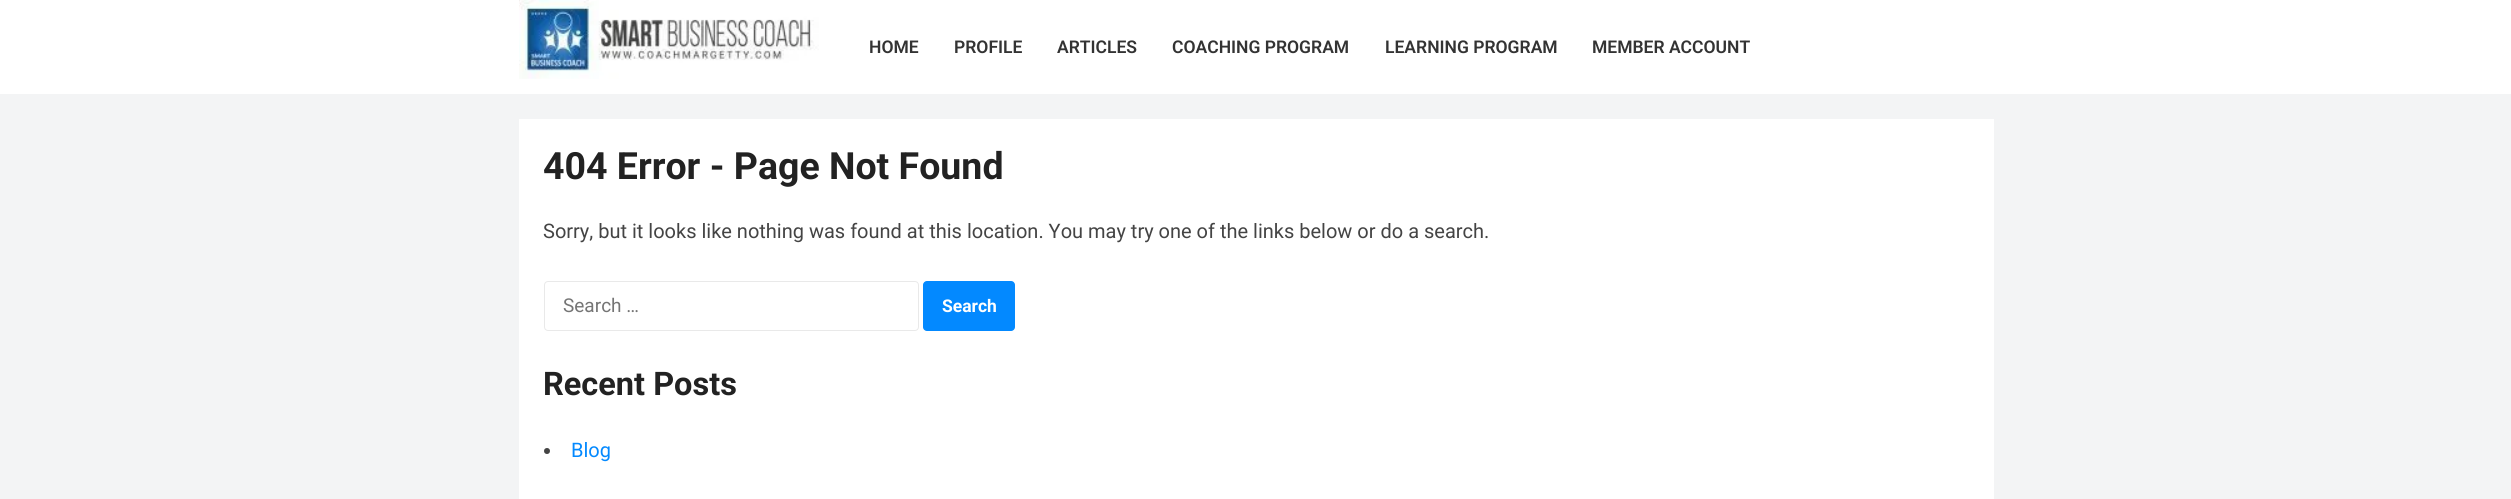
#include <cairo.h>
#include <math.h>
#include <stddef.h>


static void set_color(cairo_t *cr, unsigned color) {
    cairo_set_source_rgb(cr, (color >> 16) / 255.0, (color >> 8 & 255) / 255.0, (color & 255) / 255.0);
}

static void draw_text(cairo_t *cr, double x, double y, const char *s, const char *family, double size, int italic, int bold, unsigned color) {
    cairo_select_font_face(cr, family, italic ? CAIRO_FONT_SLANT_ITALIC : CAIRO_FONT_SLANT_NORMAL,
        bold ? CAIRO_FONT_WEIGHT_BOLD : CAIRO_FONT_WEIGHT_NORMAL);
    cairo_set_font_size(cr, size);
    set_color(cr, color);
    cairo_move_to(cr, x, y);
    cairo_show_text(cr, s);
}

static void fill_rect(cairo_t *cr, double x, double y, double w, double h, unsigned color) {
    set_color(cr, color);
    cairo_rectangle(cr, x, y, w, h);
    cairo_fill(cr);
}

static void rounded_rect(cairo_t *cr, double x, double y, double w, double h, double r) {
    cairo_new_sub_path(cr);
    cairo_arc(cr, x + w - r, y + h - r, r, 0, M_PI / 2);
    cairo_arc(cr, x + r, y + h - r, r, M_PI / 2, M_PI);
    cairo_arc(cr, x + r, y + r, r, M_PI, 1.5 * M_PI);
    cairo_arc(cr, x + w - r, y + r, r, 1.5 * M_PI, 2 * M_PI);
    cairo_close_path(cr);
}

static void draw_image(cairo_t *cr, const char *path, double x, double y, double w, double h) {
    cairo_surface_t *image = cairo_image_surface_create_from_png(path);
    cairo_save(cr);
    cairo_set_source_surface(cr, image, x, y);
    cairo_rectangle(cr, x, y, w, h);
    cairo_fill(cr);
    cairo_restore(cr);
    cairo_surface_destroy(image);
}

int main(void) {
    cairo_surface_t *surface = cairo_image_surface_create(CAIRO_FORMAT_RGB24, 2511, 499);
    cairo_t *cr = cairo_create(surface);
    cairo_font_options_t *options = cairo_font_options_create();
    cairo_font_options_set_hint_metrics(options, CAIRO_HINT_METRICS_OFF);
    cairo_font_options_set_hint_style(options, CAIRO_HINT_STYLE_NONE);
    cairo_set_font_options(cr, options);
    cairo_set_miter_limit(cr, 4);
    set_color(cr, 0xF3F4F5);
    cairo_paint(cr);
    fill_rect(cr, 0, 0, 2511, 94, 0xFFFFFF);
    draw_image(cr, "assets/img1.png", 519, 0, 300, 79);
    draw_text(cr, 869, 53, "HOME", "Roboto SemiBold", 17.5, 0, 0, 0x333333);
    draw_text(cr, 954, 53, "PROFILE", "Roboto SemiBold", 17.5, 0, 0, 0x333333);
    draw_text(cr, 1057, 53, "ARTICLES", "Roboto SemiBold", 17.5, 0, 0, 0x333333);
    draw_text(cr, 1172, 53, "COACHING PROGRAM", "Roboto SemiBold", 17.5, 0, 0, 0x333333);
    draw_text(cr, 1385, 53, "LEARNING PROGRAM", "Roboto SemiBold", 17.5, 0, 0, 0x333333);
    draw_text(cr, 1592, 53, "MEMBER ACCOUNT", "Roboto SemiBold", 17.5, 0, 0, 0x333333);
    fill_rect(cr, 519, 119, 1475, 380, 0xFFFFFF);
    draw_text(cr, 543, 179, "404 Error - Page Not Found", "Roboto", 37.5, 0, 1, 0x222222);
    draw_text(cr, 543, 238, "Sorry, but it looks like nothing was found at this location. You may try one of the links below or do a search.", "Roboto", 20, 0, 0, 0x444444);
    rounded_rect(cr, 544.5, 281.5, 374, 49, 3.5);
    set_color(cr, 0xE9E9E9);
    cairo_set_line_width(cr, 1);
    cairo_stroke(cr);
    draw_text(cr, 563, 312, "Search …", "Roboto", 19, 0, 0, 0x757575);
    set_color(cr, 0x0389FF);
    rounded_rect(cr, 923, 281, 92, 50, 4);
    cairo_fill(cr);
    draw_text(cr, 942, 312, "Search", "Roboto", 17.5, 0, 1, 0xFFFFFF);
    draw_text(cr, 543, 395, "Recent Posts", "Roboto", 32.5, 0, 1, 0x222222);
    set_color(cr, 0x444444);
    cairo_new_path(cr);
    cairo_arc(cr, 547, 451, 3, 0, 2 * M_PI);
    cairo_fill(cr);
    draw_text(cr, 571, 457, "Blog", "Roboto", 20, 0, 0, 0x0389FF);
    cairo_surface_write_to_png(surface, "output.png");
    cairo_font_options_destroy(options);
    cairo_destroy(cr);
    cairo_surface_destroy(surface);
    return 0;
}
